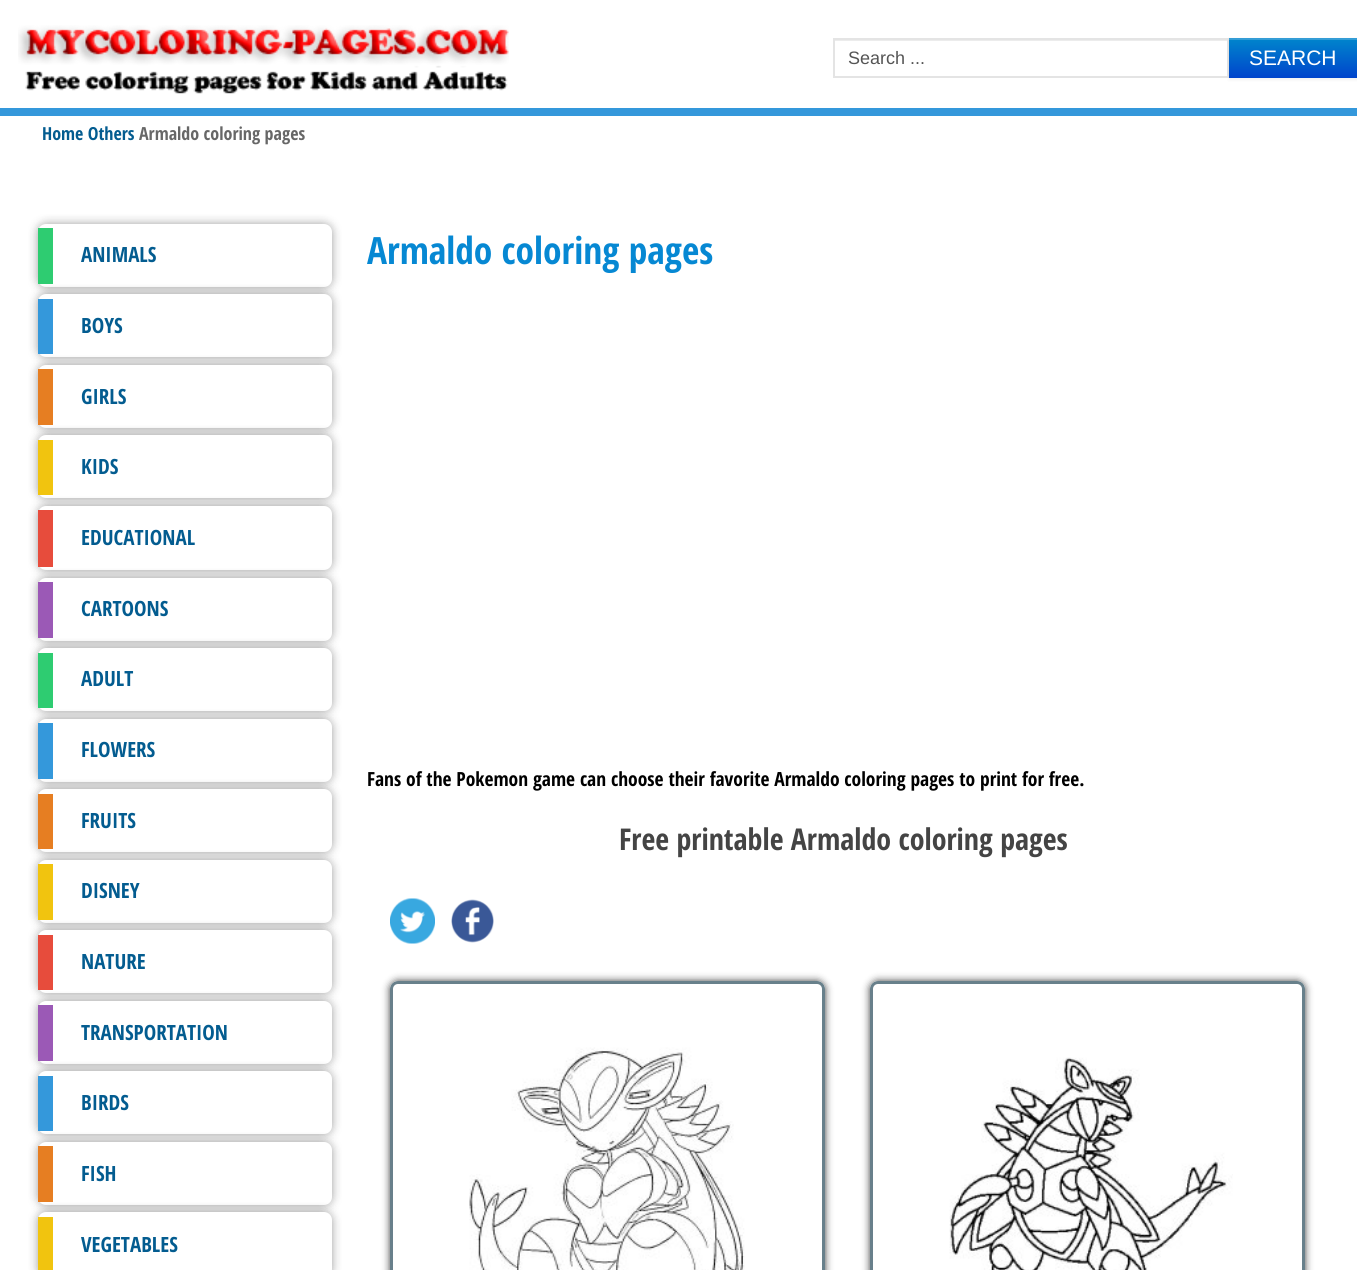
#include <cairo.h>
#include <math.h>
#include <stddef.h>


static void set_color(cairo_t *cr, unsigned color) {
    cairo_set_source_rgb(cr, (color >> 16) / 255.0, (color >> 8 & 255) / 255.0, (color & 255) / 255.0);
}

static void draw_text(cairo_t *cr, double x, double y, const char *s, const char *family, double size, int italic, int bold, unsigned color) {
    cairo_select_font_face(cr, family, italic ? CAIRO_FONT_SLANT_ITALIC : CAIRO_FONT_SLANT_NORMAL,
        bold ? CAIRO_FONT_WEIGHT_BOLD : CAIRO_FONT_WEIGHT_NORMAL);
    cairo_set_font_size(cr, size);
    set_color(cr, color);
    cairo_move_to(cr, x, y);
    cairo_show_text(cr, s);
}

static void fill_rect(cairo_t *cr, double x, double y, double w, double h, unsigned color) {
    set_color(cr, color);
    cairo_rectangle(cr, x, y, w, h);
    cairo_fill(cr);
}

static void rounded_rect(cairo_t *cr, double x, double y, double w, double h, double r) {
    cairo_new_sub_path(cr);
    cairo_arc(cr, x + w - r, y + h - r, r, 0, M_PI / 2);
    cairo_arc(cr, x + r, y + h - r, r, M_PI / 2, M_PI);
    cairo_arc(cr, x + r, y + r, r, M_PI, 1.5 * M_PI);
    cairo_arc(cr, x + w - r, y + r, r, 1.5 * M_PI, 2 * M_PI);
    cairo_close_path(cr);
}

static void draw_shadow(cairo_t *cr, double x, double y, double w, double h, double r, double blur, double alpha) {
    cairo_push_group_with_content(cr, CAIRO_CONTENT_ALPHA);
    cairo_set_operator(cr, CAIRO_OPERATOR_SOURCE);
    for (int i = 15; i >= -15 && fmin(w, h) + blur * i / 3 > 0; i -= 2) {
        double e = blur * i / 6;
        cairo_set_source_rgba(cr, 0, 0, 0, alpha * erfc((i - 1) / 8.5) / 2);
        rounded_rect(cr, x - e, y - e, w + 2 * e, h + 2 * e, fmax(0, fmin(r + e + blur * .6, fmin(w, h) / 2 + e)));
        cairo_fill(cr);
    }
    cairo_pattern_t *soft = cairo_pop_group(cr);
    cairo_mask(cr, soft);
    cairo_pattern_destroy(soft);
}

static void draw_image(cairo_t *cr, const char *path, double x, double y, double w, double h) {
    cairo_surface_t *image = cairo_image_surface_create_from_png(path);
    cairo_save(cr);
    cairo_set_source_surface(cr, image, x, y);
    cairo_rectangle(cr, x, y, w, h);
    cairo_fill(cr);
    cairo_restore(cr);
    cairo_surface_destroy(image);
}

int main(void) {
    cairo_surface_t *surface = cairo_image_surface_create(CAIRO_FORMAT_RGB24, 1357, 1270);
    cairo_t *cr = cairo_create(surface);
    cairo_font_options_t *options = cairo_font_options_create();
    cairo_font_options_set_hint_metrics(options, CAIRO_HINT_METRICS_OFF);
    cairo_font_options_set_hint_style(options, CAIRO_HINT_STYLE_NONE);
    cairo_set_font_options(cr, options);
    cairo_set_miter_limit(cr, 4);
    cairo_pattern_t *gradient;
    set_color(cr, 0xFFFFFF);
    cairo_paint(cr);
    fill_rect(cr, 0, 108, 1357, 8, 0x3498DB);
    draw_image(cr, "assets/img1.png", 18, 25, 491, 69);
    fill_rect(cr, 834, 40, 393, 1, 0xECECEC);
    cairo_rectangle(cr, 834, 39, 394, 38);
    set_color(cr, 0xE4E4E4);
    cairo_stroke(cr);
    draw_text(cr, 848, 64, "Search ...", "Liberation Sans", 18, 0, 0, 0x555555);
    set_color(cr, 0x000000);
    draw_shadow(cr, 1229, 39, 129, 41, 0, 1.5, 0.05);
    gradient = cairo_pattern_create_linear(1293, 37, 1293, 78);
    cairo_pattern_add_color_stop_rgba(gradient, 0, 0, 0.533, 0.8, 1);
    cairo_pattern_add_color_stop_rgba(gradient, 1, 0, 0.267, 0.8, 1);
    cairo_set_source(cr, gradient);
    cairo_pattern_destroy(gradient);
    cairo_rectangle(cr, 1229, 40, 128, 38);
    cairo_fill(cr);
    fill_rect(cr, 1229, 38, 128, 2, 0x339DD6);
    draw_text(cr, 1249, 65, "SEARCH", "Liberation Sans", 21, 0, 0, 0xFFFFFF);
    draw_text(cr, 42, 140, "Home Others", "Open Sans Condensed", 18, 0, 1, 0x035C90);
    draw_text(cr, 139, 140, "Armaldo coloring pages", "Open Sans Condensed", 18, 0, 1, 0x676767);
    set_color(cr, 0x000000);
    draw_shadow(cr, 35, 227, 294, 63, 8, 4, 0.1);
    draw_shadow(cr, 41, 227, 294, 63, 8, 4, 0.1);
    draw_shadow(cr, 35, 221, 294, 63, 8, 4, 0.1);
    draw_shadow(cr, 41, 221, 294, 63, 8, 4, 0.1);
    set_color(cr, 0xFFFFFF);
    rounded_rect(cr, 38, 224, 294, 63, 8);
    cairo_fill(cr);
    fill_rect(cr, 38, 228, 15, 56, 0x2ECC71);
    draw_text(cr, 81, 262, "ANIMALS", "Open Sans Condensed", 21, 0, 1, 0x035C90);
    set_color(cr, 0x000000);
    draw_shadow(cr, 35, 297, 294, 63, 8, 4, 0.1);
    draw_shadow(cr, 41, 297, 294, 63, 8, 4, 0.1);
    draw_shadow(cr, 35, 291, 294, 63, 8, 4, 0.1);
    draw_shadow(cr, 41, 291, 294, 63, 8, 4, 0.1);
    set_color(cr, 0xFFFFFF);
    rounded_rect(cr, 38, 294, 294, 63, 8);
    cairo_fill(cr);
    fill_rect(cr, 38, 299, 15, 55, 0x3498DB);
    draw_text(cr, 81, 333, "BOYS", "Open Sans Condensed", 21, 0, 1, 0x035C90);
    set_color(cr, 0x000000);
    draw_shadow(cr, 35, 368, 294, 63, 8, 4, 0.1);
    draw_shadow(cr, 41, 368, 294, 63, 8, 4, 0.1);
    draw_shadow(cr, 35, 362, 294, 63, 8, 4, 0.1);
    draw_shadow(cr, 41, 362, 294, 63, 8, 4, 0.1);
    set_color(cr, 0xFFFFFF);
    rounded_rect(cr, 38, 365, 294, 63, 8);
    cairo_fill(cr);
    fill_rect(cr, 38, 369, 15, 56, 0xE67E22);
    draw_text(cr, 81, 404, "GIRLS", "Open Sans Condensed", 21, 0, 1, 0x035C90);
    set_color(cr, 0x000000);
    draw_shadow(cr, 35, 438, 294, 63, 8, 4, 0.1);
    draw_shadow(cr, 41, 438, 294, 63, 8, 4, 0.1);
    draw_shadow(cr, 35, 432, 294, 63, 8, 4, 0.1);
    draw_shadow(cr, 41, 432, 294, 63, 8, 4, 0.1);
    set_color(cr, 0xFFFFFF);
    rounded_rect(cr, 38, 435, 294, 63, 8);
    cairo_fill(cr);
    fill_rect(cr, 38, 440, 15, 55, 0xF1C40F);
    draw_text(cr, 81, 474, "KIDS", "Open Sans Condensed", 21, 0, 1, 0x035C90);
    set_color(cr, 0x000000);
    draw_shadow(cr, 35, 509, 294, 64, 8, 4, 0.1);
    draw_shadow(cr, 41, 509, 294, 64, 8, 4, 0.1);
    draw_shadow(cr, 35, 503, 294, 64, 8, 4, 0.1);
    draw_shadow(cr, 41, 503, 294, 64, 8, 4, 0.1);
    set_color(cr, 0xFFFFFF);
    rounded_rect(cr, 38, 506, 294, 64, 8);
    cairo_fill(cr);
    fill_rect(cr, 38, 510, 15, 57, 0xE74C3C);
    draw_text(cr, 81, 545, "EDUCATIONAL", "Open Sans Condensed", 21, 0, 1, 0x035C90);
    set_color(cr, 0x000000);
    draw_shadow(cr, 35, 581, 294, 63, 8, 4, 0.1);
    draw_shadow(cr, 41, 581, 294, 63, 8, 4, 0.1);
    draw_shadow(cr, 35, 575, 294, 63, 8, 4, 0.1);
    draw_shadow(cr, 41, 575, 294, 63, 8, 4, 0.1);
    set_color(cr, 0xFFFFFF);
    rounded_rect(cr, 38, 578, 294, 63, 8);
    cairo_fill(cr);
    fill_rect(cr, 38, 582, 15, 56, 0x9B59B6);
    draw_text(cr, 81, 616, "CARTOONS", "Open Sans Condensed", 21, 0, 1, 0x035C90);
    set_color(cr, 0x000000);
    draw_shadow(cr, 35, 651, 294, 63, 8, 4, 0.1);
    draw_shadow(cr, 41, 651, 294, 63, 8, 4, 0.1);
    draw_shadow(cr, 35, 645, 294, 63, 8, 4, 0.1);
    draw_shadow(cr, 41, 645, 294, 63, 8, 4, 0.1);
    set_color(cr, 0xFFFFFF);
    rounded_rect(cr, 38, 648, 294, 63, 8);
    cairo_fill(cr);
    fill_rect(cr, 38, 653, 15, 55, 0x2ECC71);
    draw_text(cr, 81, 686, "ADULT", "Open Sans Condensed", 21, 0, 1, 0x035C90);
    set_color(cr, 0x000000);
    draw_shadow(cr, 35, 722, 294, 63, 8, 4, 0.1);
    draw_shadow(cr, 41, 722, 294, 63, 8, 4, 0.1);
    draw_shadow(cr, 35, 716, 294, 63, 8, 4, 0.1);
    draw_shadow(cr, 41, 716, 294, 63, 8, 4, 0.1);
    set_color(cr, 0xFFFFFF);
    rounded_rect(cr, 38, 719, 294, 63, 8);
    cairo_fill(cr);
    fill_rect(cr, 38, 723, 15, 56, 0x3498DB);
    draw_text(cr, 81, 757, "FLOWERS", "Open Sans Condensed", 21, 0, 1, 0x035C90);
    set_color(cr, 0x000000);
    draw_shadow(cr, 35, 792, 294, 63, 8, 4, 0.1);
    draw_shadow(cr, 41, 792, 294, 63, 8, 4, 0.1);
    draw_shadow(cr, 35, 786, 294, 63, 8, 4, 0.1);
    draw_shadow(cr, 41, 786, 294, 63, 8, 4, 0.1);
    set_color(cr, 0xFFFFFF);
    rounded_rect(cr, 38, 789, 294, 63, 8);
    cairo_fill(cr);
    fill_rect(cr, 38, 794, 15, 55, 0xE67E22);
    draw_text(cr, 81, 828, "FRUITS", "Open Sans Condensed", 21, 0, 1, 0x035C90);
    set_color(cr, 0x000000);
    draw_shadow(cr, 35, 863, 294, 63, 8, 4, 0.1);
    draw_shadow(cr, 41, 863, 294, 63, 8, 4, 0.1);
    draw_shadow(cr, 35, 857, 294, 63, 8, 4, 0.1);
    draw_shadow(cr, 41, 857, 294, 63, 8, 4, 0.1);
    set_color(cr, 0xFFFFFF);
    rounded_rect(cr, 38, 860, 294, 63, 8);
    cairo_fill(cr);
    fill_rect(cr, 38, 864, 15, 56, 0xF1C40F);
    draw_text(cr, 81, 898, "DISNEY", "Open Sans Condensed", 21, 0, 1, 0x035C90);
    set_color(cr, 0x000000);
    draw_shadow(cr, 35, 933, 294, 63, 8, 4, 0.1);
    draw_shadow(cr, 41, 933, 294, 63, 8, 4, 0.1);
    draw_shadow(cr, 35, 927, 294, 63, 8, 4, 0.1);
    draw_shadow(cr, 41, 927, 294, 63, 8, 4, 0.1);
    set_color(cr, 0xFFFFFF);
    rounded_rect(cr, 38, 930, 294, 63, 8);
    cairo_fill(cr);
    fill_rect(cr, 38, 935, 15, 55, 0xE74C3C);
    draw_text(cr, 81, 969, "NATURE", "Open Sans Condensed", 21, 0, 1, 0x035C90);
    set_color(cr, 0x000000);
    draw_shadow(cr, 35, 1004, 294, 63, 8, 4, 0.1);
    draw_shadow(cr, 41, 1004, 294, 63, 8, 4, 0.1);
    draw_shadow(cr, 35, 998, 294, 63, 8, 4, 0.1);
    draw_shadow(cr, 41, 998, 294, 63, 8, 4, 0.1);
    set_color(cr, 0xFFFFFF);
    rounded_rect(cr, 38, 1001, 294, 63, 8);
    cairo_fill(cr);
    fill_rect(cr, 38, 1005, 15, 56, 0x9B59B6);
    draw_text(cr, 81, 1040, "TRANSPORTATION", "Open Sans Condensed", 21, 0, 1, 0x035C90);
    set_color(cr, 0x000000);
    draw_shadow(cr, 35, 1074, 294, 63, 8, 4, 0.1);
    draw_shadow(cr, 41, 1074, 294, 63, 8, 4, 0.1);
    draw_shadow(cr, 35, 1068, 294, 63, 8, 4, 0.1);
    draw_shadow(cr, 41, 1068, 294, 63, 8, 4, 0.1);
    set_color(cr, 0xFFFFFF);
    rounded_rect(cr, 38, 1071, 294, 63, 8);
    cairo_fill(cr);
    fill_rect(cr, 38, 1076, 15, 55, 0x3498DB);
    draw_text(cr, 81, 1110, "BIRDS", "Open Sans Condensed", 21, 0, 1, 0x035C90);
    set_color(cr, 0x000000);
    draw_shadow(cr, 35, 1145, 294, 63, 8, 4, 0.1);
    draw_shadow(cr, 41, 1145, 294, 63, 8, 4, 0.1);
    draw_shadow(cr, 35, 1139, 294, 63, 8, 4, 0.1);
    draw_shadow(cr, 41, 1139, 294, 63, 8, 4, 0.1);
    set_color(cr, 0xFFFFFF);
    rounded_rect(cr, 38, 1142, 294, 63, 8);
    cairo_fill(cr);
    fill_rect(cr, 38, 1146, 15, 56, 0xE67E22);
    draw_text(cr, 81, 1181, "FISH", "Open Sans Condensed", 21, 0, 1, 0x035C90);
    set_color(cr, 0x000000);
    draw_shadow(cr, 35, 1215, 294, 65, 8, 4, 0.1);
    draw_shadow(cr, 41, 1215, 294, 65, 8, 4, 0.1);
    draw_shadow(cr, 35, 1209, 294, 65, 8, 4, 0.1);
    draw_shadow(cr, 41, 1209, 294, 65, 8, 4, 0.1);
    set_color(cr, 0xFFFFFF);
    rounded_rect(cr, 38, 1212, 294, 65, 8);
    cairo_fill(cr);
    fill_rect(cr, 38, 1217, 15, 53, 0xF1C40F);
    draw_text(cr, 81, 1252, "VEGETABLES", "Open Sans Condensed", 21, 0, 1, 0x035C90);
    draw_text(cr, 367, 264, "Armaldo coloring pages", "Open Sans Condensed", 37.5, 0, 1, 0x0688D3);
    draw_text(cr, 367, 786, "Fans of the Pokemon game can choose their favorite Armaldo coloring pages to print for free.", "Open Sans Condensed", 19.5, 0, 1, 0x000000);
    draw_text(cr, 619, 850, "Free printable Armaldo coloring pages", "Open Sans Condensed", 30, 0, 1, 0x444444);
    draw_image(cr, "assets/img2.png", 390, 898, 45, 46);
    draw_image(cr, "assets/img3.png", 451, 899, 43, 44);
    cairo_save(cr);
    cairo_set_fill_rule(cr, CAIRO_FILL_RULE_EVEN_ODD);
    cairo_new_path(cr);
    cairo_move_to(cr, 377, 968);
    cairo_line_to(cr, 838, 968);
    cairo_line_to(cr, 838, 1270);
    cairo_line_to(cr, 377, 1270);
    cairo_close_path(cr);
    cairo_move_to(cr, 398, 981);
    cairo_line_to(cr, 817, 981);
    cairo_curve_to(cr, 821.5, 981, 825, 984.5, 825, 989);
    cairo_line_to(cr, 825, 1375);
    cairo_curve_to(cr, 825, 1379.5, 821.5, 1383, 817, 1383);
    cairo_line_to(cr, 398, 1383);
    cairo_curve_to(cr, 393.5, 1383, 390, 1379.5, 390, 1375);
    cairo_line_to(cr, 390, 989);
    cairo_curve_to(cr, 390, 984.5, 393.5, 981, 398, 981);
    cairo_close_path(cr);
    cairo_clip(cr);
    set_color(cr, 0x000000);
    draw_shadow(cr, 390, 981, 435, 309, 8, 4, 0.75);
    cairo_restore(cr);
    rounded_rect(cr, 391.5, 982.5, 432, 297, 6.5);
    set_color(cr, 0x68808B);
    cairo_set_line_width(cr, 3);
    cairo_stroke(cr);
    draw_image(cr, "assets/img4.png", 469, 1047, 276, 223);
    cairo_save(cr);
    cairo_set_fill_rule(cr, CAIRO_FILL_RULE_EVEN_ODD);
    cairo_new_path(cr);
    cairo_move_to(cr, 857, 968);
    cairo_line_to(cr, 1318, 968);
    cairo_line_to(cr, 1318, 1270);
    cairo_line_to(cr, 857, 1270);
    cairo_close_path(cr);
    cairo_move_to(cr, 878, 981);
    cairo_line_to(cr, 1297, 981);
    cairo_curve_to(cr, 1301.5, 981, 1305, 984.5, 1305, 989);
    cairo_line_to(cr, 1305, 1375);
    cairo_curve_to(cr, 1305, 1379.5, 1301.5, 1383, 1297, 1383);
    cairo_line_to(cr, 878, 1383);
    cairo_curve_to(cr, 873.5, 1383, 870, 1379.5, 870, 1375);
    cairo_line_to(cr, 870, 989);
    cairo_curve_to(cr, 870, 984.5, 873.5, 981, 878, 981);
    cairo_close_path(cr);
    cairo_clip(cr);
    set_color(cr, 0x000000);
    draw_shadow(cr, 870, 981, 435, 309, 8, 4, 0.75);
    cairo_restore(cr);
    rounded_rect(cr, 871.5, 982.5, 432, 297, 6.5);
    cairo_stroke(cr);
    draw_image(cr, "assets/img5.png", 949, 1057, 284, 213);
    cairo_surface_write_to_png(surface, "output.png");
    cairo_font_options_destroy(options);
    cairo_destroy(cr);
    cairo_surface_destroy(surface);
    return 0;
}
